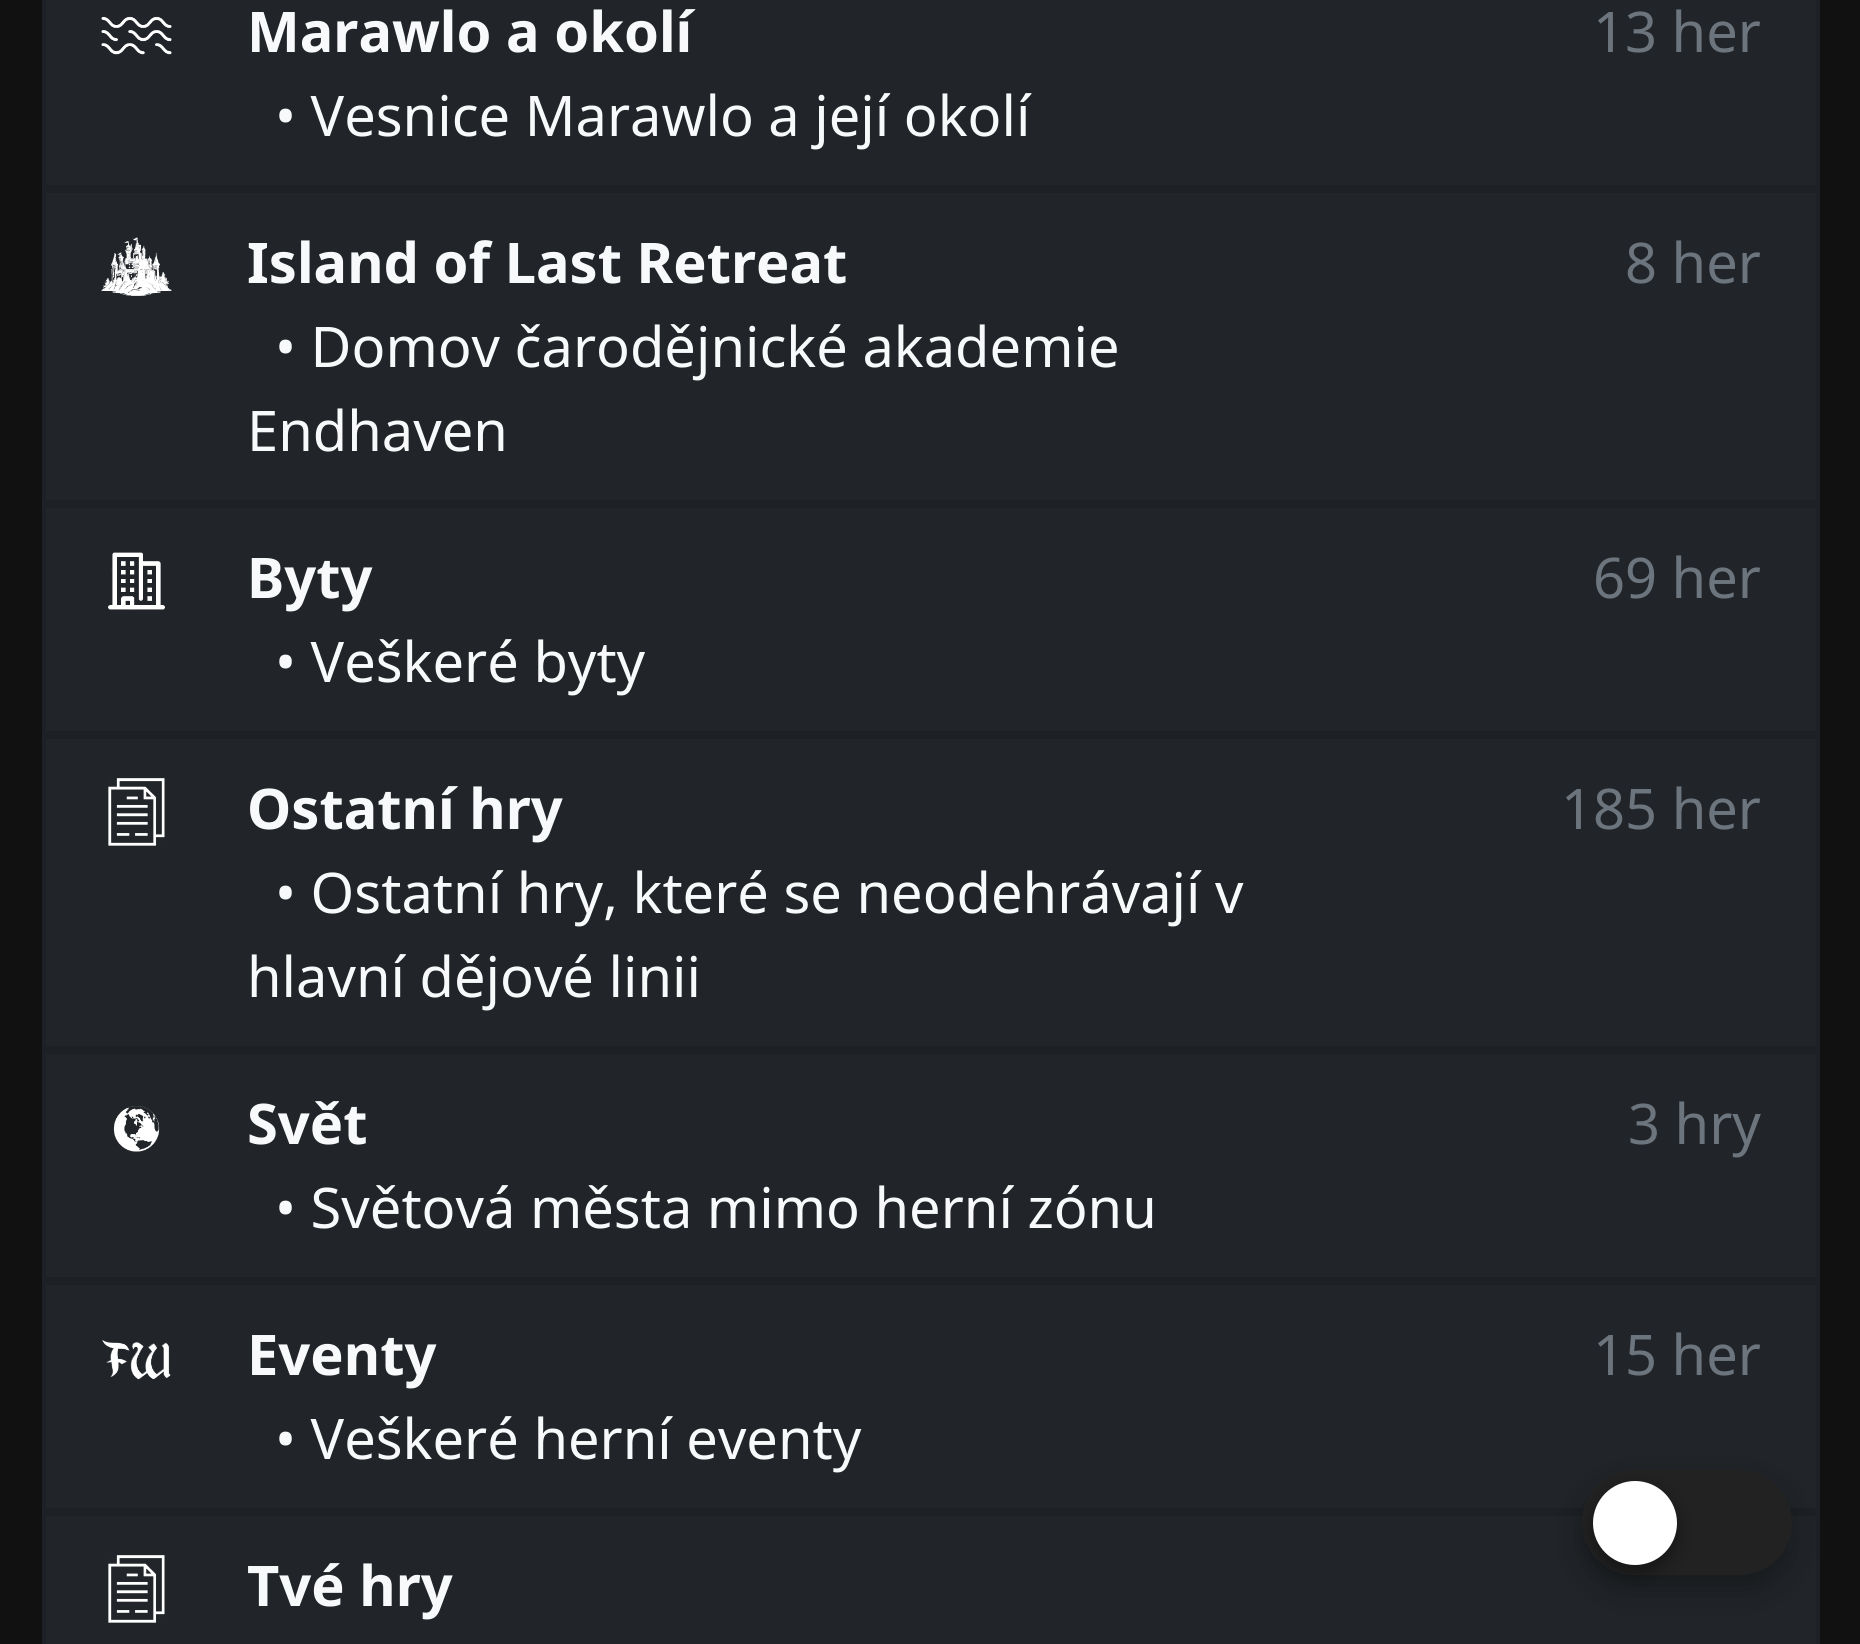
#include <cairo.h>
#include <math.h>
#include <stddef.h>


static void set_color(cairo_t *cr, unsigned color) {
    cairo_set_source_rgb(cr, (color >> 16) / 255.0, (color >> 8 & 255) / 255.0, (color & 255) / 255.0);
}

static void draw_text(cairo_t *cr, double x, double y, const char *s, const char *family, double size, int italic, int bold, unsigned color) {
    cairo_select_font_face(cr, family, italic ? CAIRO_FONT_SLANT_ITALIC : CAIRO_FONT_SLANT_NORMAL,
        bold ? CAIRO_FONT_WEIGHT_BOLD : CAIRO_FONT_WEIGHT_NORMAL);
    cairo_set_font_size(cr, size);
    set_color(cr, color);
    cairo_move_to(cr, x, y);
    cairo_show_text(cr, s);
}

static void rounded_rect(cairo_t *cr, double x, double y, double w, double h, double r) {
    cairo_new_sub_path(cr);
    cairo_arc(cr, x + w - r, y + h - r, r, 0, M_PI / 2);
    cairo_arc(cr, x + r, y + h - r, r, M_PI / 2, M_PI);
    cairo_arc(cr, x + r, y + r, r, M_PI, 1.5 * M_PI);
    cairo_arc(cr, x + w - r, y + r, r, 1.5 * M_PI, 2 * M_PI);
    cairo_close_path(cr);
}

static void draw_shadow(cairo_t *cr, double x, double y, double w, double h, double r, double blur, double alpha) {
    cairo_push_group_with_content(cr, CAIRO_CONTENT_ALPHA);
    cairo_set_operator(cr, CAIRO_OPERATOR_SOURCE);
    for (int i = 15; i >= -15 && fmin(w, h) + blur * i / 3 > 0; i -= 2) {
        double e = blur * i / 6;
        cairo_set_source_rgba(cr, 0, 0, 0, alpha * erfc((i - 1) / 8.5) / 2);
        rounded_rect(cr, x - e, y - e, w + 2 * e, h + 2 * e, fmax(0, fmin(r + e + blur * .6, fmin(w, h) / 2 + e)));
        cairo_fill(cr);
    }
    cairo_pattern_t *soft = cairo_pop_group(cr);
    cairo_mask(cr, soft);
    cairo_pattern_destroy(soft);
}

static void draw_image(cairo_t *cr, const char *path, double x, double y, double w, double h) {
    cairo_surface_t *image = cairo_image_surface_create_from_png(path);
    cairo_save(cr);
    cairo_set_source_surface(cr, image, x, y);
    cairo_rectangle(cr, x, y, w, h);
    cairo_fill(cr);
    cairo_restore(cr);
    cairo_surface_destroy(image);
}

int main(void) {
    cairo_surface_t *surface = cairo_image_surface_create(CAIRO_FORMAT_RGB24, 1860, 1644);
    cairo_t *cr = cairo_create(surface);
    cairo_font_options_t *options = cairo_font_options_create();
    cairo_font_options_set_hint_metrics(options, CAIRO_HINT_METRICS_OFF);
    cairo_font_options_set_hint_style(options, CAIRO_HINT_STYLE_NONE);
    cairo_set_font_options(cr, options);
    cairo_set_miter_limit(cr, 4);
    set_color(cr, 0x111111);
    cairo_paint(cr);
    set_color(cr, 0x212529);
    cairo_rectangle(cr, 44, -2, 1774, 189);
    cairo_fill_preserve(cr);
    set_color(cr, 0x1D2024);
    cairo_set_line_width(cr, 4);
    cairo_stroke(cr);
    draw_image(cr, "assets/img1.png", 101, 16, 71, 39);
    draw_text(cr, 247, 52, "Marawlo a okolí", "Noto Sans", 56, 0, 1, 0xF8F9FA);
    draw_text(cr, 275, 136, "• Vesnice Marawlo a její okolí", "Noto Sans", 56, 0, 0, 0xF8F9FA);
    draw_text(cr, 1593, 52, "13 her", "Noto Sans", 56, 0, 0, 0x6C757D);
    set_color(cr, 0x212529);
    cairo_rectangle(cr, 44, 191, 1774, 311);
    cairo_fill_preserve(cr);
    set_color(cr, 0x1D2024);
    cairo_stroke(cr);
    draw_image(cr, "assets/img2.png", 101, 237, 71, 59);
    draw_text(cr, 247, 283, "Island of Last Retreat", "Noto Sans", 56, 0, 1, 0xF8F9FA);
    draw_text(cr, 275, 367, "• Domov čarodějnické akademie", "Noto Sans", 56, 0, 0, 0xF8F9FA);
    draw_text(cr, 247, 451, "Endhaven", "Noto Sans", 56, 0, 0, 0xF8F9FA);
    draw_text(cr, 1625, 283, "8 her", "Noto Sans", 56, 0, 0, 0x6C757D);
    set_color(cr, 0x212529);
    cairo_rectangle(cr, 44, 506, 1774, 227);
    cairo_fill_preserve(cr);
    set_color(cr, 0x1D2024);
    cairo_stroke(cr);
    draw_image(cr, "assets/img3.png", 108, 552, 57, 58);
    draw_text(cr, 247, 598, "Byty", "Noto Sans", 56, 0, 1, 0xF8F9FA);
    draw_text(cr, 275, 682, "• Veškeré byty", "Noto Sans", 56, 0, 0, 0xF8F9FA);
    draw_text(cr, 1593, 598, "69 her", "Noto Sans", 56, 0, 0, 0x6C757D);
    set_color(cr, 0x212529);
    cairo_rectangle(cr, 44, 737, 1774, 311);
    cairo_fill_preserve(cr);
    set_color(cr, 0x1D2024);
    cairo_stroke(cr);
    draw_image(cr, "assets/img4.png", 108, 778, 57, 68);
    draw_text(cr, 247, 829, "Ostatní hry", "Noto Sans", 56, 0, 1, 0xF8F9FA);
    draw_text(cr, 275, 913, "• Ostatní hry, které se neodehrávají v", "Noto Sans", 56, 0, 0, 0xF8F9FA);
    draw_text(cr, 247, 997, "hlavní dějové linii", "Noto Sans", 56, 0, 0, 0xF8F9FA);
    draw_text(cr, 1561, 829, "185 her", "Noto Sans", 56, 0, 0, 0x6C757D);
    set_color(cr, 0x212529);
    cairo_rectangle(cr, 44, 1052, 1774, 227);
    cairo_fill_preserve(cr);
    set_color(cr, 0x1D2024);
    cairo_stroke(cr);
    draw_image(cr, "assets/img5.png", 113, 1106, 47, 46);
    draw_text(cr, 247, 1144, "Svět", "Noto Sans", 56, 0, 1, 0xF8F9FA);
    draw_text(cr, 275, 1228, "• Světová města mimo herní zónu", "Noto Sans", 56, 0, 0, 0xF8F9FA);
    draw_text(cr, 1628, 1144, "3 hry", "Noto Sans", 56, 0, 0, 0x6C757D);
    set_color(cr, 0x212529);
    cairo_rectangle(cr, 44, 1283, 1774, 227);
    cairo_fill_preserve(cr);
    set_color(cr, 0x1D2024);
    cairo_stroke(cr);
    draw_image(cr, "assets/img6.png", 102, 1340, 69, 40);
    draw_text(cr, 247, 1375, "Eventy", "Noto Sans", 56, 0, 1, 0xF8F9FA);
    draw_text(cr, 275, 1459, "• Veškeré herní eventy", "Noto Sans", 56, 0, 0, 0xF8F9FA);
    draw_text(cr, 1593, 1375, "15 her", "Noto Sans", 56, 0, 0, 0x6C757D);
    set_color(cr, 0x212529);
    cairo_rectangle(cr, 44, 1514, 1774, 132);
    cairo_fill_preserve(cr);
    set_color(cr, 0x1D2024);
    cairo_stroke(cr);
    draw_image(cr, "assets/img7.png", 108, 1555, 57, 68);
    draw_text(cr, 247, 1606, "Tvé hry", "Noto Sans", 56, 0, 1, 0xF8F9FA);
    set_color(cr, 0x000000);
    draw_shadow(cr, 1582, 1484, 210, 105, 52.5, 17.5, 0.3);
    set_color(cr, 0x222222);
    rounded_rect(cr, 1582, 1470, 210, 105, 52.5);
    cairo_fill(cr);
    set_color(cr, 0x000000);
    draw_shadow(cr, 1593, 1488, 84, 84, 42, 9, 0.4);
    set_color(cr, 0xFFFFFF);
    cairo_arc(cr, 1635, 1523, 42, 0, 2 * M_PI);
    cairo_fill(cr);
    cairo_surface_write_to_png(surface, "output.png");
    cairo_font_options_destroy(options);
    cairo_destroy(cr);
    cairo_surface_destroy(surface);
    return 0;
}
